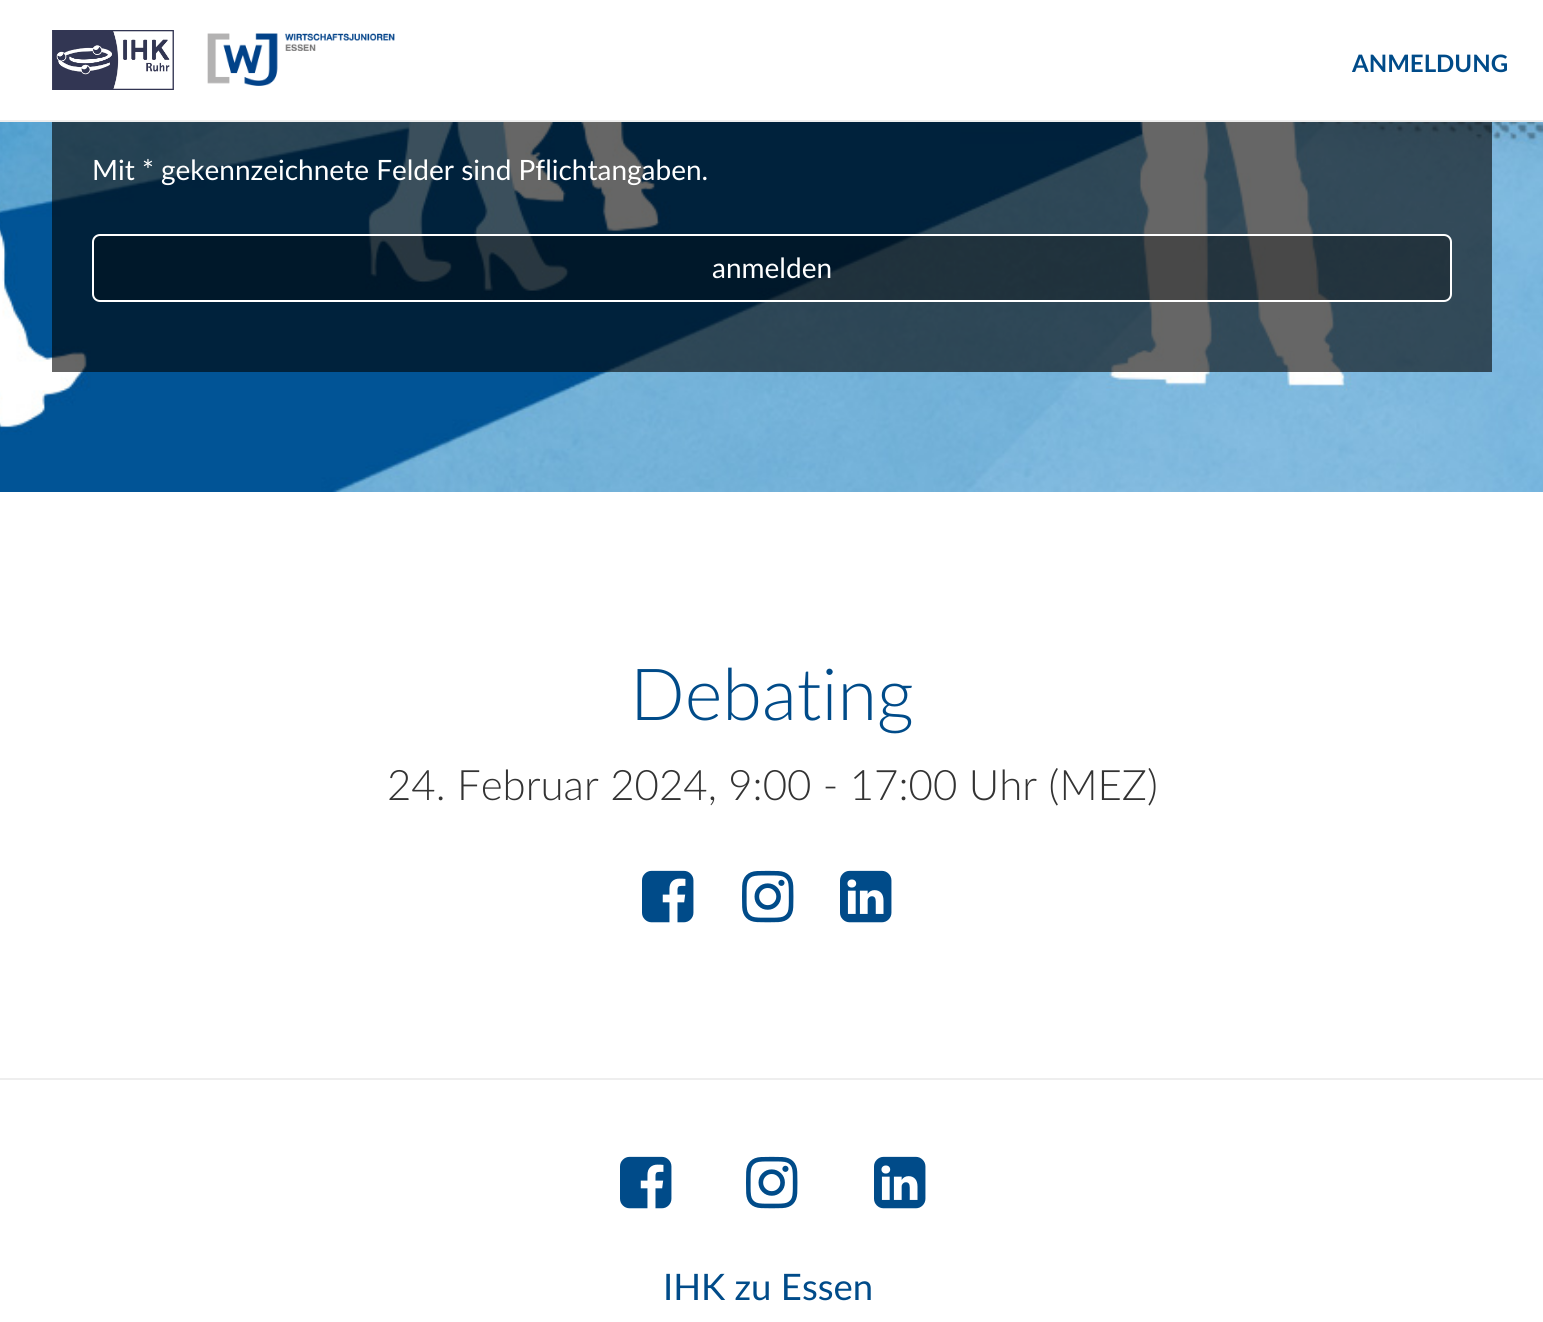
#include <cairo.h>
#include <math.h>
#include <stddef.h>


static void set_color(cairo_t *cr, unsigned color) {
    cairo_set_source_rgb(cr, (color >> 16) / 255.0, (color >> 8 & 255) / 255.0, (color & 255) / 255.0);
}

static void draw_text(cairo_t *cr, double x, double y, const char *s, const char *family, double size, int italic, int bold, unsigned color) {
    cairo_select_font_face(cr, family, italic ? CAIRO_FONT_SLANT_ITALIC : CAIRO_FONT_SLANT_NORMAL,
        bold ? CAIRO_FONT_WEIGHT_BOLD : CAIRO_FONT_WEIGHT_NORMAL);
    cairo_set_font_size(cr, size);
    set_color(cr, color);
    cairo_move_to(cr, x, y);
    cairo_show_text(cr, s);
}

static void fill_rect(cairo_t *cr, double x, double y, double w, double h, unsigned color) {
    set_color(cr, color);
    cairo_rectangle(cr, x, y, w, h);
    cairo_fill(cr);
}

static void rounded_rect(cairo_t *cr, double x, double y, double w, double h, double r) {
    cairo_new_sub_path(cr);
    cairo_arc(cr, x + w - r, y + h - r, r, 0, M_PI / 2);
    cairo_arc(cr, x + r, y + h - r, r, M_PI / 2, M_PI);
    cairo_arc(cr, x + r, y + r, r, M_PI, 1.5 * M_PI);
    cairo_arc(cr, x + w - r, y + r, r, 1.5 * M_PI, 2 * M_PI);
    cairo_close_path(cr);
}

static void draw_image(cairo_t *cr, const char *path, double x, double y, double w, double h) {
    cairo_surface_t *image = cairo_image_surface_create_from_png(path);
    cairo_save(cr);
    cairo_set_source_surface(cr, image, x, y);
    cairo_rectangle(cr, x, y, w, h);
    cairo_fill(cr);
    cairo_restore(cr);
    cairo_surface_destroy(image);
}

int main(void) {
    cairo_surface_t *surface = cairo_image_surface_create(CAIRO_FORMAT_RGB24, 1543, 1322);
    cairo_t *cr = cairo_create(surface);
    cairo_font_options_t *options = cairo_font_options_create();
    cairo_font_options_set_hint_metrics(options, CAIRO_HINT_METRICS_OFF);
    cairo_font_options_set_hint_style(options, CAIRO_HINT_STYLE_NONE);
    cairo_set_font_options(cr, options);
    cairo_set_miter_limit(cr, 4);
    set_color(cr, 0xFFFFFF);
    cairo_paint(cr);
    fill_rect(cr, 0, 120, 1543, 2, 0xEEEEEE);
    draw_image(cr, "assets/img1.png", 52, 30, 122, 60);
    draw_image(cr, "assets/img2.png", 207, 33, 188, 53);
    draw_text(cr, 1352, 72, "ANMELDUNG", "Lato", 24, 0, 1, 0x004B89);
    draw_image(cr, "assets/img3.png", 0, 122, 1543, 370);
    cairo_set_source_rgba(cr, 0, 0, 0, 0.6);
    cairo_rectangle(cr, 52, 122, 1440, 250);
    cairo_fill(cr);
    draw_text(cr, 92, 180, "Mit * gekennzeichnete Felder sind Pflichtangaben.", "Lato", 28, 0, 0, 0xFFFFFF);
    cairo_set_source_rgba(cr, 0, 0, 0, 0.3);
    rounded_rect(cr, 93, 235, 1358, 66, 7);
    cairo_fill_preserve(cr);
    set_color(cr, 0xFFFFFF);
    cairo_stroke(cr);
    draw_text(cr, 712, 278, "anmelden", "Lato", 28, 0, 0, 0xFFFFFF);
    fill_rect(cr, 0, 1078, 1543, 2, 0xEEEEEE);
    draw_text(cr, 630, 720, "Debating", "Lato Light", 72, 0, 0, 0x004B89);
    draw_text(cr, 387, 800, "24. Februar 2024, 9:00 - 17:00 Uhr (MEZ)", "Lato Light", 42, 0, 0, 0x333333);
    draw_image(cr, "assets/img4.png", 642, 870, 52, 53);
    draw_image(cr, "assets/img5.png", 742, 870, 52, 53);
    draw_image(cr, "assets/img6.png", 840, 870, 52, 53);
    draw_image(cr, "assets/img4.png", 620, 1156, 52, 53);
    draw_image(cr, "assets/img5.png", 746, 1156, 52, 53);
    draw_image(cr, "assets/img6.png", 874, 1156, 52, 53);
    draw_text(cr, 663, 1300, "IHK zu Essen", "Lato", 36.5, 0, 0, 0x004B89);
    cairo_surface_write_to_png(surface, "output.png");
    cairo_font_options_destroy(options);
    cairo_destroy(cr);
    cairo_surface_destroy(surface);
    return 0;
}
